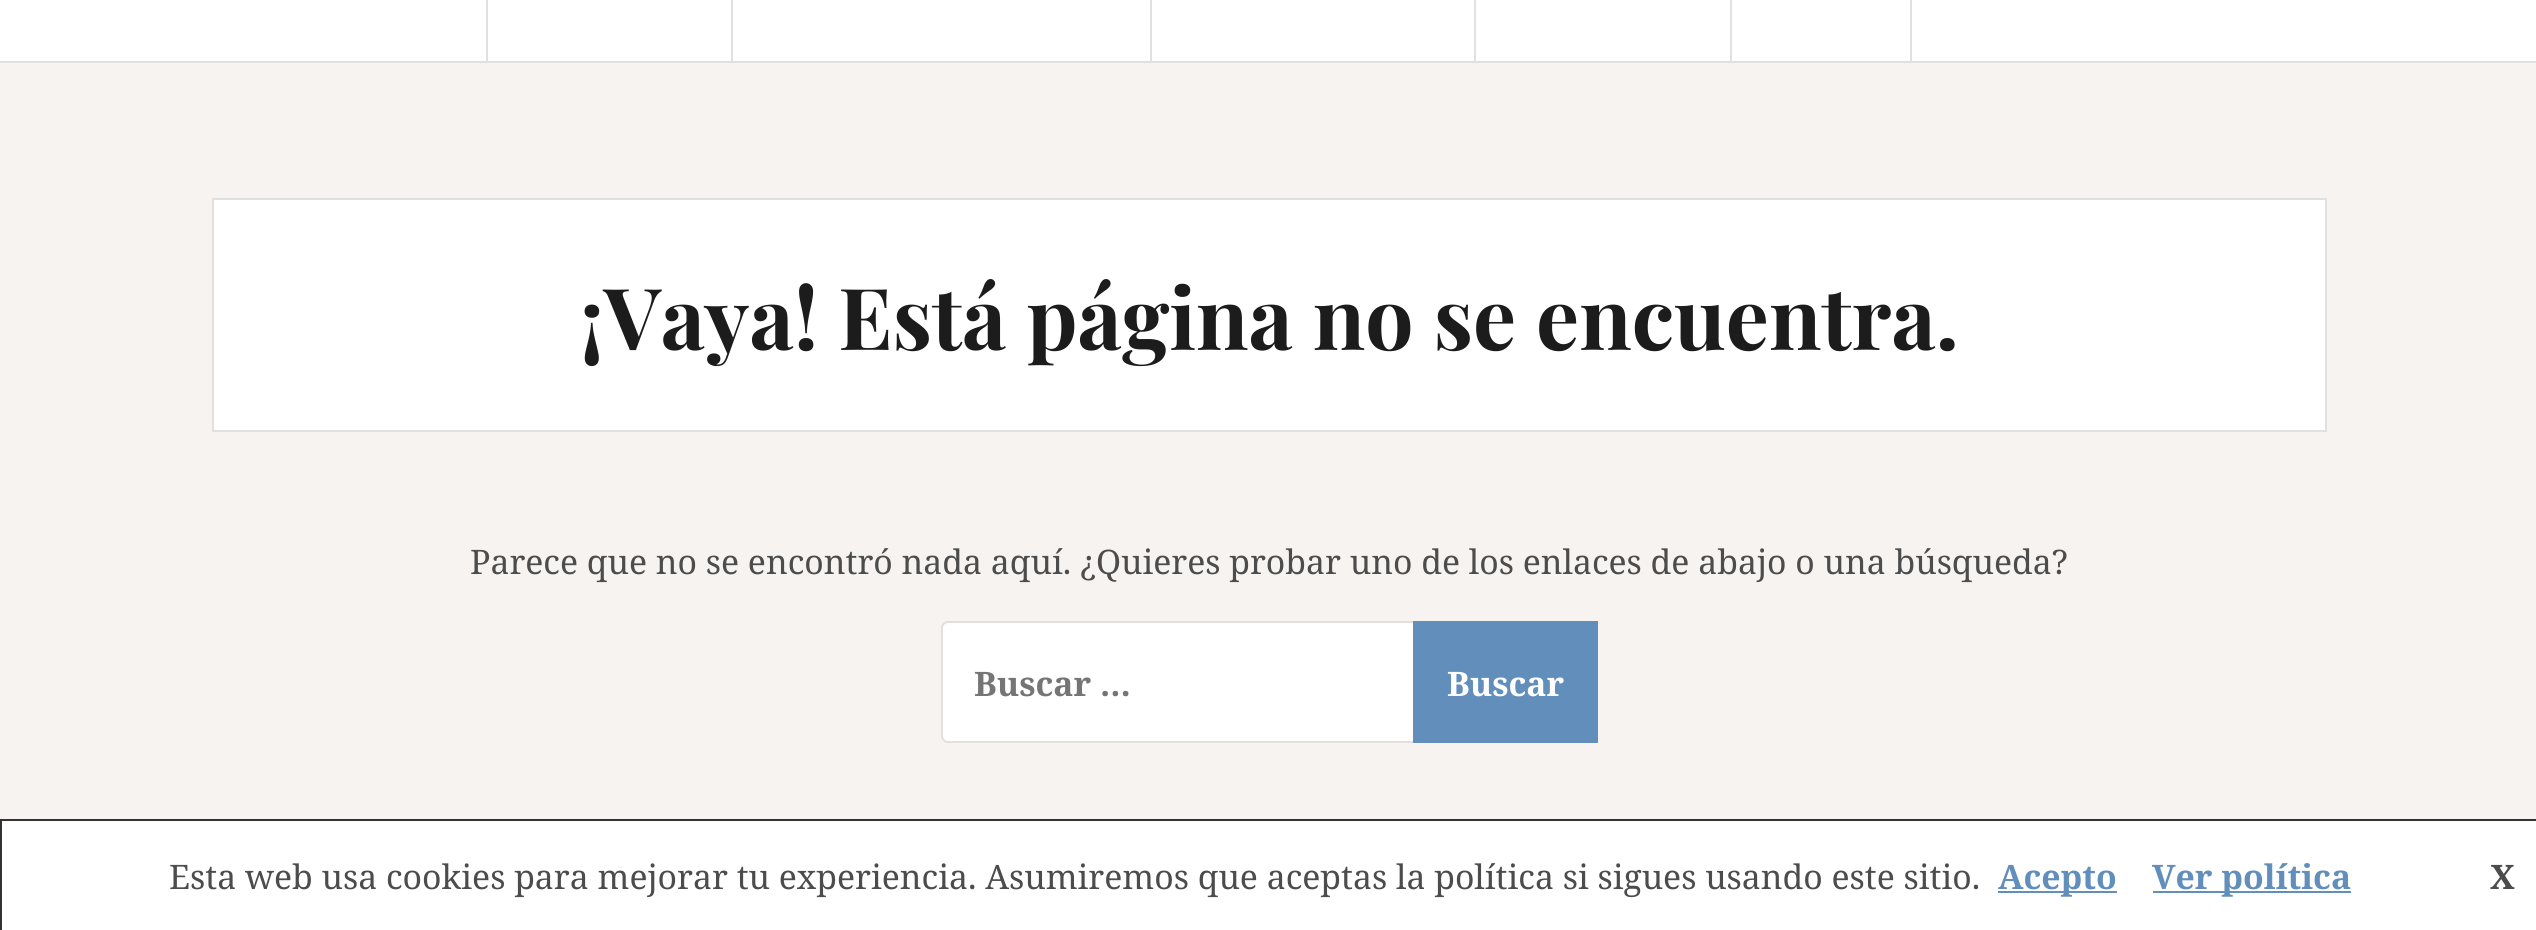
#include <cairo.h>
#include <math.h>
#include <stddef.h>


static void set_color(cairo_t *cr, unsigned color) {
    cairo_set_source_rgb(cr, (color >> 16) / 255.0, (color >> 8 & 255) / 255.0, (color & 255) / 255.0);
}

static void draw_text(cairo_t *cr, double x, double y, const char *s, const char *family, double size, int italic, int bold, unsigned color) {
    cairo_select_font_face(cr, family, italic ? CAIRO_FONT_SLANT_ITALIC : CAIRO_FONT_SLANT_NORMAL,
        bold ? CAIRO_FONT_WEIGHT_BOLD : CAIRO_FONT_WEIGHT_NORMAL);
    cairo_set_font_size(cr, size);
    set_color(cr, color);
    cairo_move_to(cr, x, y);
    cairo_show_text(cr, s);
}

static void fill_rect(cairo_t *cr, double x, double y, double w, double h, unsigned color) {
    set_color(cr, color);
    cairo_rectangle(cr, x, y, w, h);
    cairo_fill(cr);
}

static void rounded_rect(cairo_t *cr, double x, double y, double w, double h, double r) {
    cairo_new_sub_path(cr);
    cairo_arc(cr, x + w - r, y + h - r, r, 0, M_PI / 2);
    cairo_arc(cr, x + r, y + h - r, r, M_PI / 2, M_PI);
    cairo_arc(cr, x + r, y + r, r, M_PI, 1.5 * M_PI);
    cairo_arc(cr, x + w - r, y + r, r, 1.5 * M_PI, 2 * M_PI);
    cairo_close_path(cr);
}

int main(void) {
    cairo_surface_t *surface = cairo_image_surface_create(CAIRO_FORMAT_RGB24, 2536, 930);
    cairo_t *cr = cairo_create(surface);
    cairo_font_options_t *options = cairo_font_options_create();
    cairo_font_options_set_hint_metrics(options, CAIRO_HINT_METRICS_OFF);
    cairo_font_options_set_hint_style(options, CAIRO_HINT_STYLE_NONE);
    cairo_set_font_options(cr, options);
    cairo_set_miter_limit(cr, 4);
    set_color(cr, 0xF7F3F0);
    cairo_paint(cr);
    fill_rect(cr, 0, 0, 2536, 61, 0xFFFFFF);
    fill_rect(cr, 0, 61, 2536, 2, 0xE0E0E0);
    fill_rect(cr, 486, 0, 2, 61, 0xE0E0E0);
    fill_rect(cr, 731, 0, 2, 61, 0xE0E0E0);
    fill_rect(cr, 1150, 0, 2, 61, 0xE0E0E0);
    fill_rect(cr, 1474, 0, 2, 61, 0xE0E0E0);
    fill_rect(cr, 1730, 0, 2, 61, 0xE0E0E0);
    fill_rect(cr, 1910, 0, 2, 61, 0xE0E0E0);
    set_color(cr, 0xFFFFFF);
    cairo_rectangle(cr, 213, 199, 2113, 232);
    cairo_fill_preserve(cr);
    set_color(cr, 0xE0E0E0);
    cairo_stroke(cr);
    draw_text(cr, 580, 350, "¡Vaya! Está página no se encuentra.", "Playfair Display", 85.5, 0, 1, 0x1C1C1C);
    draw_text(cr, 470, 574, "Parece que no se encontró nada aquí. ¿Quieres probar uno de los enlaces de abajo o una búsqueda?", "Noto Serif", 33.75, 0, 0, 0x4C4C4C);
    set_color(cr, 0xFFFFFF);
    rounded_rect(cr, 942, 622, 529, 120, 6);
    cairo_fill_preserve(cr);
    set_color(cr, 0xE0E0E0);
    cairo_stroke(cr);
    draw_text(cr, 974, 696, "Buscar …", "Noto Serif", 33.75, 0, 1, 0x757575);
    fill_rect(cr, 1413, 621, 185, 122, 0x618EBA);
    draw_text(cr, 1447, 696, "Buscar", "Noto Serif", 33.75, 0, 1, 0xFFFFFF);
    cairo_rectangle(cr, 1, 820, 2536, 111);
    cairo_fill_preserve(cr);
    set_color(cr, 0x333333);
    cairo_stroke(cr);
    draw_text(cr, 169, 889, "Esta web usa cookies para mejorar tu experiencia. Asumiremos que aceptas la política si sigues usando este sitio.", "Noto Serif", 33.75, 0, 0, 0x4C4C4C);
    fill_rect(cr, 1998, 891, 119, 2, 0x618EBA);
    draw_text(cr, 1998, 889, "Acepto", "Noto Serif", 33.75, 0, 1, 0x618EBA);
    fill_rect(cr, 2153, 891, 198, 2, 0x618EBA);
    draw_text(cr, 2152, 889, "Ver política", "Noto Serif", 33.75, 0, 1, 0x618EBA);
    draw_text(cr, 2490, 889, "X", "Noto Serif", 33.75, 0, 1, 0x4C4C4C);
    cairo_surface_write_to_png(surface, "output.png");
    cairo_font_options_destroy(options);
    cairo_destroy(cr);
    cairo_surface_destroy(surface);
    return 0;
}
